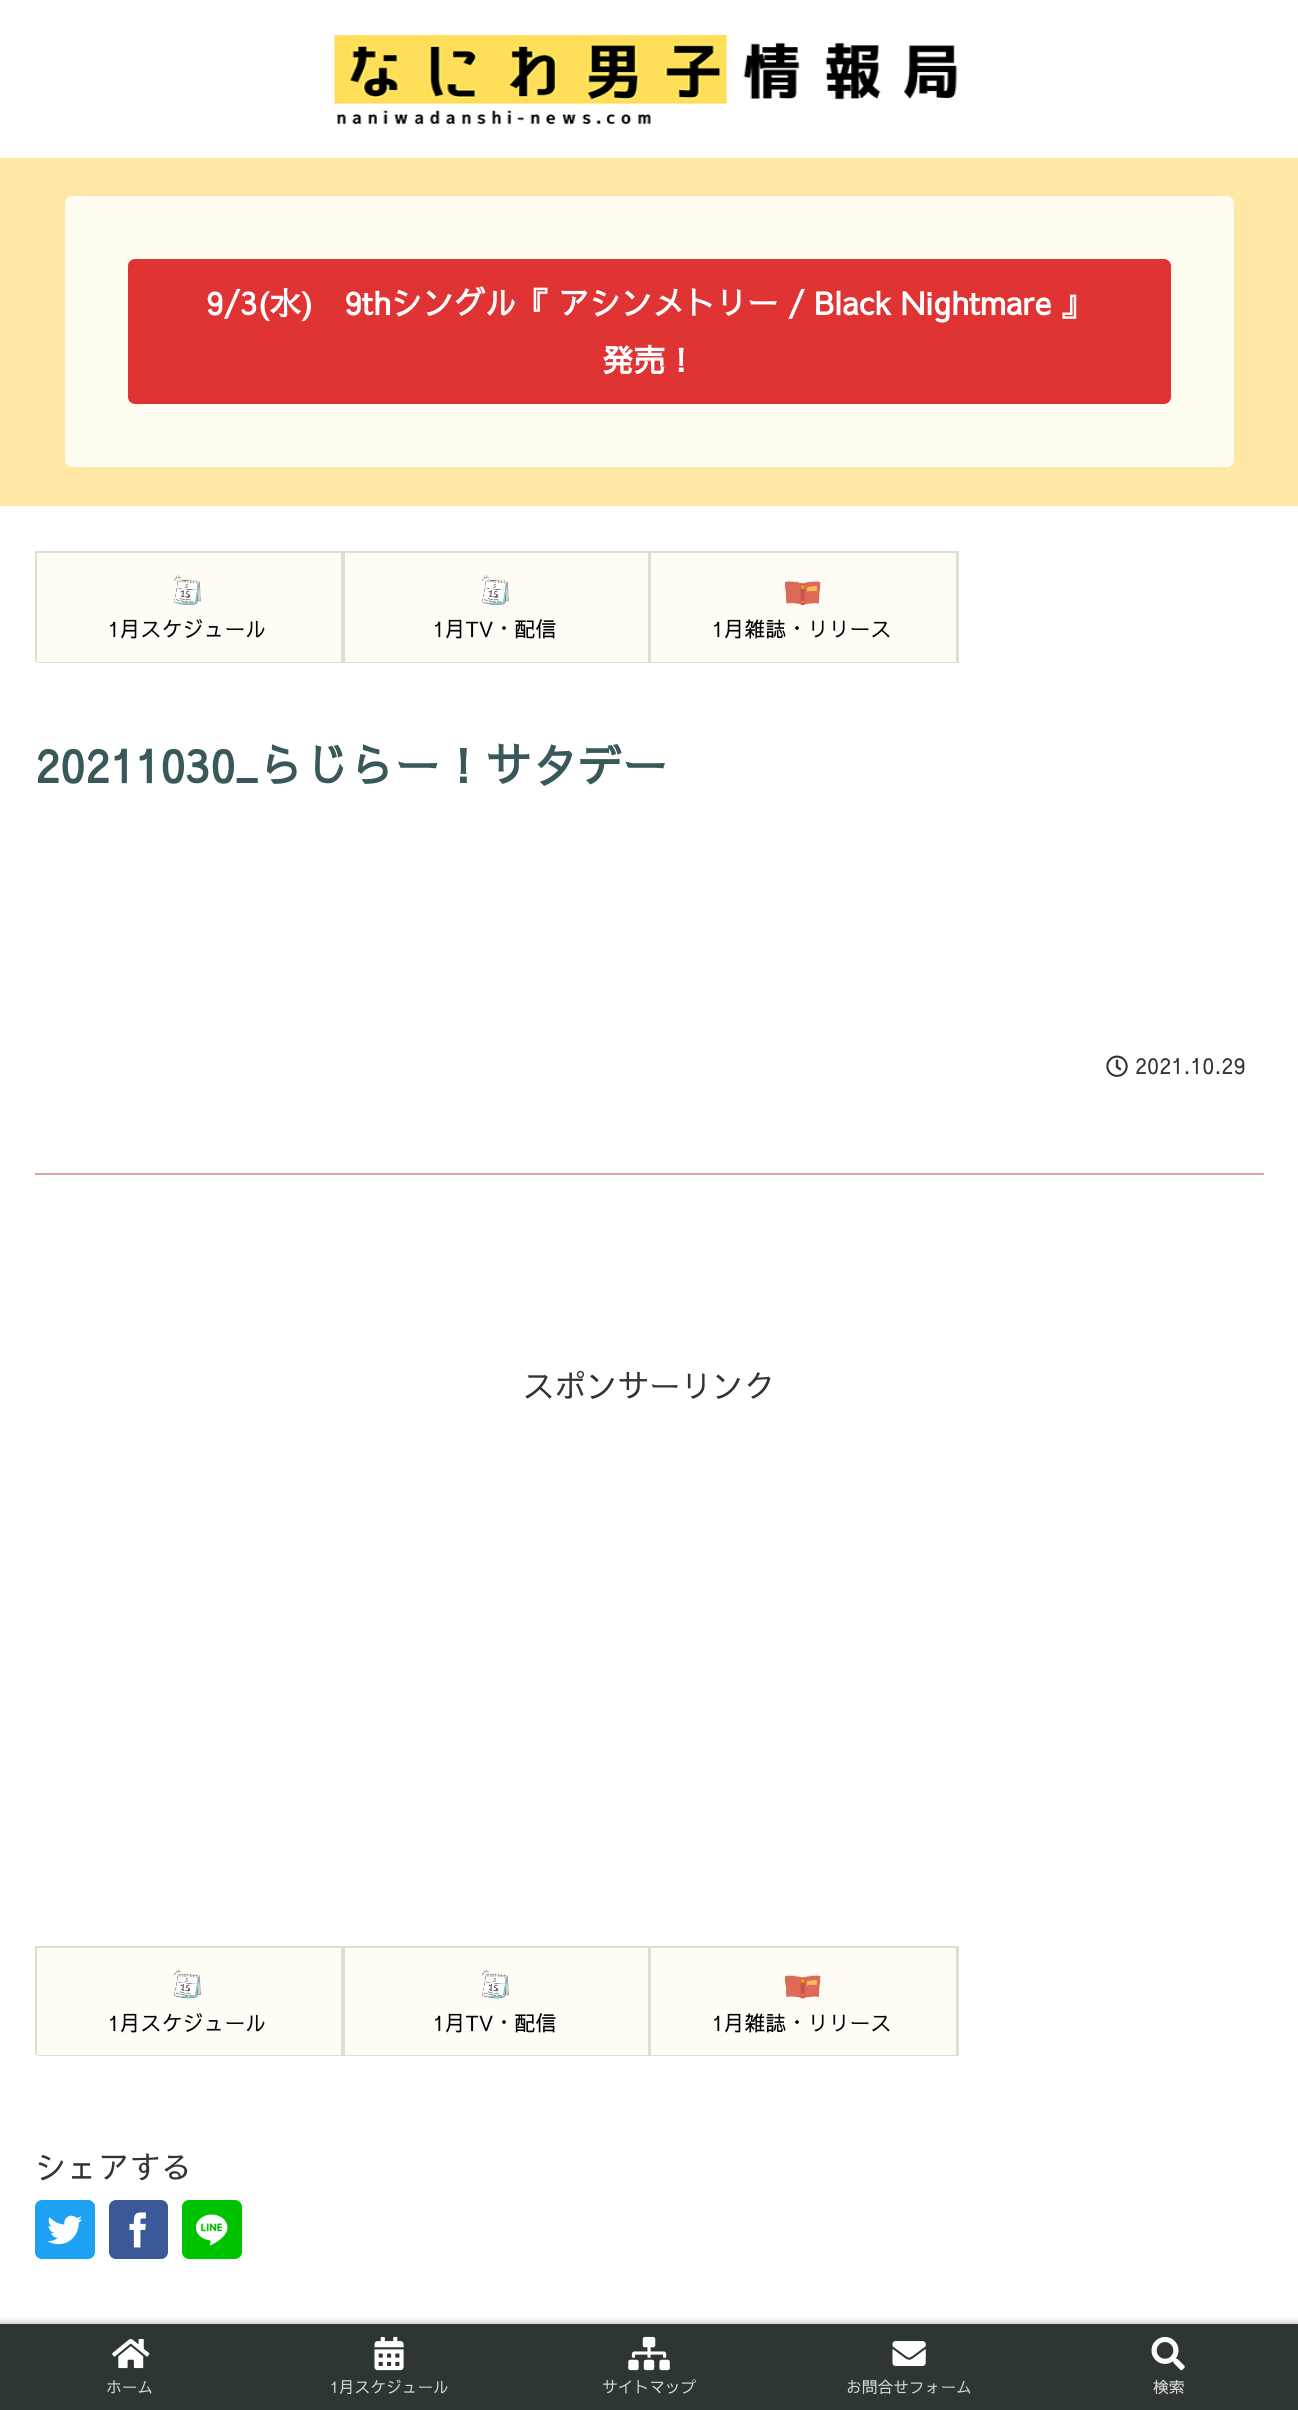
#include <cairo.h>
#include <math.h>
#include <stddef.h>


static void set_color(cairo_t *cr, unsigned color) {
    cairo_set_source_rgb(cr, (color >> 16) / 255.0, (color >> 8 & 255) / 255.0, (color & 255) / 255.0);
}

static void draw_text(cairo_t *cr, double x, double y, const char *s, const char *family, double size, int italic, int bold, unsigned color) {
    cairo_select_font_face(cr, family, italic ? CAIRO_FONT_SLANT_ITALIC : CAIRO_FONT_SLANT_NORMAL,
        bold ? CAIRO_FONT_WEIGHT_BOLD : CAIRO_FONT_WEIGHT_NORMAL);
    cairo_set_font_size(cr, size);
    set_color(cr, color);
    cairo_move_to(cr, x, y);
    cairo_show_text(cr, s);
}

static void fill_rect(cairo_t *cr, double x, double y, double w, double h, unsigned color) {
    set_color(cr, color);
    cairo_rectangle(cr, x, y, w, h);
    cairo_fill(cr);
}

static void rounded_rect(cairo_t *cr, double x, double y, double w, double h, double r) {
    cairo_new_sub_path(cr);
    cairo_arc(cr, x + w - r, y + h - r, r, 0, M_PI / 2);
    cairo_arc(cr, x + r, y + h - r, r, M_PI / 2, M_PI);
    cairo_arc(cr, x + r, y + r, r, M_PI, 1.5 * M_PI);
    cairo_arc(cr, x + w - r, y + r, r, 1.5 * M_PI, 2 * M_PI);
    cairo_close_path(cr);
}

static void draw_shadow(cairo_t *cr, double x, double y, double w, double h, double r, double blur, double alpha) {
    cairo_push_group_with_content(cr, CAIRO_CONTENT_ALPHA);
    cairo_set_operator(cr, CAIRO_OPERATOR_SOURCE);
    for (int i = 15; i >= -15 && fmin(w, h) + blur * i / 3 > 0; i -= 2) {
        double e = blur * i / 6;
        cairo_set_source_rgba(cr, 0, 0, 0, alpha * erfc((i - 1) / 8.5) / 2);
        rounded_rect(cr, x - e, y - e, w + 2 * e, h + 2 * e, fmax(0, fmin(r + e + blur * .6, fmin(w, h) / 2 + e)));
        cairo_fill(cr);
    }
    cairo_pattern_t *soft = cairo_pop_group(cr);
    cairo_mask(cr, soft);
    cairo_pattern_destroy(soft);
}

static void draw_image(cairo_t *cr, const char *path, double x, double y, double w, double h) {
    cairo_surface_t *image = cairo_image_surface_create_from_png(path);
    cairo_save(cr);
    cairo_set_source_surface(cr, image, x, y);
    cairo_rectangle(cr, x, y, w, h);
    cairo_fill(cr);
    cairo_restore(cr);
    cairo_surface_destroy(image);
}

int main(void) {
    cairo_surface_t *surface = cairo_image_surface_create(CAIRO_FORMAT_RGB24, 1298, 2410);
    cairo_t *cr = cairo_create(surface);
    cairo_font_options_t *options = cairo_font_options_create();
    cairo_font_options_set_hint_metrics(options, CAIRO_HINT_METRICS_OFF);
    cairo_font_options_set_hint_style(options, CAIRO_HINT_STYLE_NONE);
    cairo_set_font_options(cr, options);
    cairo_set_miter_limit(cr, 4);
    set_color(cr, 0xFFFFFF);
    cairo_paint(cr);
    draw_image(cr, "assets/img1.png", 333, 35, 624, 90);
    fill_rect(cr, 0, 158, 1298, 348, 0xFFE7A5);
    set_color(cr, 0xFFFCF1);
    rounded_rect(cr, 65, 196, 1169, 271, 7);
    cairo_fill(cr);
    set_color(cr, 0xE03333);
    rounded_rect(cr, 128, 259, 1043, 145, 7);
    cairo_fill(cr);
    draw_text(cr, 206, 315, "9/3(水)　9thシングル『 アシンメトリー / Black Nightmare 』", "Sawarabi Gothic", 31.5, 0, 1, 0xFFFFFF);
    draw_text(cr, 602, 372, "発売！", "Sawarabi Gothic", 31.5, 0, 1, 0xFFFFFF);
    set_color(cr, 0xE0DDD1);
    cairo_new_path(cr);
    cairo_move_to(cr, 37, 662);
    cairo_line_to(cr, 37, 663);
    cairo_line_to(cr, 345, 663);
    cairo_line_to(cr, 345, 553);
    cairo_line_to(cr, 343, 553);
    cairo_line_to(cr, 343, 662);
    cairo_close_path(cr);
    cairo_fill(cr);
    fill_rect(cr, 37, 553, 304, 109, 0xFFFCF6);
    cairo_save(cr);
    cairo_rectangle(cr, 35, 551, 306, 111);
    cairo_clip(cr);
    set_color(cr, 0xE0DDD1);
    cairo_set_fill_rule(cr, CAIRO_FILL_RULE_EVEN_ODD);
    cairo_new_path(cr);
    cairo_move_to(cr, -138, 378);
    cairo_line_to(cr, 514, 378);
    cairo_line_to(cr, 514, 835);
    cairo_line_to(cr, -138, 835);
    cairo_close_path(cr);
    cairo_move_to(cr, 37, 553);
    cairo_line_to(cr, 343, 553);
    cairo_line_to(cr, 343, 663);
    cairo_line_to(cr, 37, 663);
    cairo_close_path(cr);
    cairo_fill(cr);
    cairo_restore(cr);
    fill_rect(cr, 341, 551, 2, 111, 0xE0DDD1);
    draw_image(cr, "assets/img2.png", 173, 574, 28, 31);
    draw_text(cr, 108, 637, "1月スケジュール", "Sawarabi Gothic", 21, 0, 0, 0x000000);
    set_color(cr, 0xE0DDD1);
    cairo_new_path(cr);
    cairo_move_to(cr, 345, 662);
    cairo_line_to(cr, 345, 663);
    cairo_line_to(cr, 651, 663);
    cairo_line_to(cr, 651, 553);
    cairo_line_to(cr, 649, 553);
    cairo_line_to(cr, 649, 662);
    cairo_close_path(cr);
    cairo_fill(cr);
    fill_rect(cr, 345, 553, 303, 109, 0xFFFCF6);
    cairo_save(cr);
    cairo_rectangle(cr, 343, 551, 305, 111);
    cairo_clip(cr);
    set_color(cr, 0xE0DDD1);
    cairo_set_fill_rule(cr, CAIRO_FILL_RULE_EVEN_ODD);
    cairo_new_path(cr);
    cairo_move_to(cr, 170, 378);
    cairo_line_to(cr, 821, 378);
    cairo_line_to(cr, 821, 835);
    cairo_line_to(cr, 170, 835);
    cairo_close_path(cr);
    cairo_move_to(cr, 345, 553);
    cairo_line_to(cr, 649, 553);
    cairo_line_to(cr, 649, 663);
    cairo_line_to(cr, 345, 663);
    cairo_close_path(cr);
    cairo_fill(cr);
    cairo_restore(cr);
    fill_rect(cr, 648, 551, 1, 111, 0xE0DDD1);
    draw_image(cr, "assets/img3.png", 481, 574, 28, 31);
    draw_text(cr, 433, 637, "1月TV・配信", "Sawarabi Gothic", 21, 0, 0, 0x000000);
    set_color(cr, 0xE0DDD1);
    cairo_new_path(cr);
    cairo_move_to(cr, 651, 551);
    cairo_line_to(cr, 957, 551);
    cairo_line_to(cr, 957, 662);
    cairo_line_to(cr, 651, 662);
    cairo_line_to(cr, 959, 662);
    cairo_line_to(cr, 959, 551);
    cairo_close_path(cr);
    cairo_fill(cr);
    cairo_new_path(cr);
    cairo_move_to(cr, 651, 662);
    cairo_line_to(cr, 651, 663);
    cairo_line_to(cr, 959, 663);
    cairo_line_to(cr, 959, 553);
    cairo_line_to(cr, 957, 553);
    cairo_line_to(cr, 957, 662);
    cairo_close_path(cr);
    cairo_fill(cr);
    fill_rect(cr, 651, 553, 305, 109, 0xFFFCF6);
    cairo_save(cr);
    cairo_rectangle(cr, 649, 551, 307, 111);
    cairo_clip(cr);
    set_color(cr, 0xE0DDD1);
    cairo_set_fill_rule(cr, CAIRO_FILL_RULE_EVEN_ODD);
    cairo_new_path(cr);
    cairo_move_to(cr, 476, 378);
    cairo_line_to(cr, 1129, 378);
    cairo_line_to(cr, 1129, 835);
    cairo_line_to(cr, 476, 835);
    cairo_close_path(cr);
    cairo_move_to(cr, 651, 553);
    cairo_line_to(cr, 957, 553);
    cairo_line_to(cr, 957, 663);
    cairo_line_to(cr, 651, 663);
    cairo_close_path(cr);
    cairo_fill(cr);
    cairo_restore(cr);
    fill_rect(cr, 956, 551, 1, 111, 0xE0DDD1);
    draw_image(cr, "assets/img4.png", 784, 579, 37, 27);
    draw_text(cr, 712, 637, "1月雑誌・リリース", "Sawarabi Gothic", 21, 0, 0, 0x000000);
    draw_text(cr, 35, 783, "20211030_らじらー！サタデー", "Sawarabi Gothic", 45.5, 0, 1, 0x39585B);
    draw_image(cr, "assets/img5.png", 1106, 1055, 22, 22);
    draw_text(cr, 1135, 1074, "2021.10.29", "Sawarabi Gothic", 22, 0, 0, 0x333333);
    fill_rect(cr, 35, 1173, 1229, 2, 0xD7A69C);
    draw_text(cr, 523, 1398, "スポンサーリンク", "Sawarabi Gothic", 31.5, 0, 0, 0x333333);
    set_color(cr, 0xE0DDD1);
    cairo_new_path(cr);
    cairo_move_to(cr, 37, 2054);
    cairo_line_to(cr, 37, 2056);
    cairo_line_to(cr, 345, 2056);
    cairo_line_to(cr, 345, 1948);
    cairo_line_to(cr, 343, 1948);
    cairo_line_to(cr, 343, 2054);
    cairo_close_path(cr);
    cairo_fill(cr);
    fill_rect(cr, 37, 1948, 304, 107, 0xFFFCF6);
    cairo_save(cr);
    cairo_rectangle(cr, 35, 1946, 306, 109);
    cairo_clip(cr);
    set_color(cr, 0xE0DDD1);
    cairo_set_fill_rule(cr, CAIRO_FILL_RULE_EVEN_ODD);
    cairo_new_path(cr);
    cairo_move_to(cr, -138, 1773);
    cairo_line_to(cr, 514, 1773);
    cairo_line_to(cr, 514, 2228);
    cairo_line_to(cr, -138, 2228);
    cairo_close_path(cr);
    cairo_move_to(cr, 37, 1948);
    cairo_line_to(cr, 343, 1948);
    cairo_line_to(cr, 343, 2056);
    cairo_line_to(cr, 37, 2056);
    cairo_close_path(cr);
    cairo_fill(cr);
    cairo_restore(cr);
    fill_rect(cr, 341, 1946, 2, 109, 0xE0DDD1);
    draw_image(cr, "assets/img6.png", 173, 1969, 28, 30);
    draw_text(cr, 108, 2031, "1月スケジュール", "Sawarabi Gothic", 21, 0, 0, 0x000000);
    set_color(cr, 0xE0DDD1);
    cairo_new_path(cr);
    cairo_move_to(cr, 345, 2054);
    cairo_line_to(cr, 345, 2056);
    cairo_line_to(cr, 651, 2056);
    cairo_line_to(cr, 651, 1948);
    cairo_line_to(cr, 649, 1948);
    cairo_line_to(cr, 649, 2054);
    cairo_close_path(cr);
    cairo_fill(cr);
    fill_rect(cr, 345, 1948, 303, 107, 0xFFFCF6);
    cairo_save(cr);
    cairo_rectangle(cr, 343, 1946, 305, 109);
    cairo_clip(cr);
    set_color(cr, 0xE0DDD1);
    cairo_set_fill_rule(cr, CAIRO_FILL_RULE_EVEN_ODD);
    cairo_new_path(cr);
    cairo_move_to(cr, 170, 1773);
    cairo_line_to(cr, 821, 1773);
    cairo_line_to(cr, 821, 2228);
    cairo_line_to(cr, 170, 2228);
    cairo_close_path(cr);
    cairo_move_to(cr, 345, 1948);
    cairo_line_to(cr, 649, 1948);
    cairo_line_to(cr, 649, 2056);
    cairo_line_to(cr, 345, 2056);
    cairo_close_path(cr);
    cairo_fill(cr);
    cairo_restore(cr);
    fill_rect(cr, 648, 1946, 1, 109, 0xE0DDD1);
    draw_image(cr, "assets/img7.png", 481, 1969, 28, 30);
    draw_text(cr, 433, 2031, "1月TV・配信", "Sawarabi Gothic", 21, 0, 0, 0x000000);
    set_color(cr, 0xE0DDD1);
    cairo_new_path(cr);
    cairo_move_to(cr, 651, 2054);
    cairo_line_to(cr, 651, 2055);
    cairo_line_to(cr, 959, 2055);
    cairo_line_to(cr, 959, 1946);
    cairo_line_to(cr, 957, 1946);
    cairo_line_to(cr, 957, 2054);
    cairo_close_path(cr);
    cairo_fill(cr);
    cairo_new_path(cr);
    cairo_move_to(cr, 651, 2054);
    cairo_line_to(cr, 651, 2056);
    cairo_line_to(cr, 959, 2056);
    cairo_line_to(cr, 959, 1948);
    cairo_line_to(cr, 957, 1948);
    cairo_line_to(cr, 957, 2054);
    cairo_close_path(cr);
    cairo_fill(cr);
    fill_rect(cr, 651, 1948, 305, 107, 0xFFFCF6);
    cairo_save(cr);
    cairo_rectangle(cr, 649, 1946, 307, 109);
    cairo_clip(cr);
    set_color(cr, 0xE0DDD1);
    cairo_set_fill_rule(cr, CAIRO_FILL_RULE_EVEN_ODD);
    cairo_new_path(cr);
    cairo_move_to(cr, 476, 1773);
    cairo_line_to(cr, 1129, 1773);
    cairo_line_to(cr, 1129, 2228);
    cairo_line_to(cr, 476, 2228);
    cairo_close_path(cr);
    cairo_move_to(cr, 651, 1948);
    cairo_line_to(cr, 957, 1948);
    cairo_line_to(cr, 957, 2056);
    cairo_line_to(cr, 651, 2056);
    cairo_close_path(cr);
    cairo_fill(cr);
    cairo_restore(cr);
    fill_rect(cr, 956, 1946, 1, 109, 0xE0DDD1);
    draw_image(cr, "assets/img8.png", 784, 1973, 37, 26);
    draw_text(cr, 712, 2031, "1月雑誌・リリース", "Sawarabi Gothic", 21, 0, 0, 0x000000);
    draw_text(cr, 35, 2179, "シェアする", "Sawarabi Gothic", 31.5, 0, 0, 0x333333);
    set_color(cr, 0x1DA1F2);
    rounded_rect(cr, 35, 2200, 60, 59, 7);
    cairo_fill(cr);
    draw_image(cr, "assets/img9.png", 47, 2215, 36, 30);
    set_color(cr, 0x3B5998);
    rounded_rect(cr, 109, 2200, 59, 59, 7);
    cairo_fill(cr);
    draw_image(cr, "assets/img10.png", 129, 2212, 17, 36);
    set_color(cr, 0x00C300);
    rounded_rect(cr, 182, 2200, 60, 59, 7);
    cairo_fill(cr);
    draw_image(cr, "assets/img11.png", 195, 2214, 33, 32);
    set_color(cr, 0xA9A9A9);
    draw_shadow(cr, 0, 2324, 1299, 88, 0, 4.5, 1);
    fill_rect(cr, 0, 2324, 1298, 86, 0x2D3535);
    draw_image(cr, "assets/img12.png", 112, 2339, 38, 30);
    draw_text(cr, 106, 2393, "ホーム", "Sawarabi Gothic", 15.75, 0, 0, 0xD5D7D7);
    draw_image(cr, "assets/img13.png", 374, 2336, 30, 35);
    draw_text(cr, 330, 2393, "1月スケジュール", "Sawarabi Gothic", 15.75, 0, 0, 0xD5D7D7);
    draw_image(cr, "assets/img14.png", 628, 2336, 42, 35);
    draw_text(cr, 602, 2393, "サイトマップ", "Sawarabi Gothic", 15.75, 0, 0, 0xD5D7D7);
    draw_image(cr, "assets/img15.png", 892, 2341, 34, 25);
    draw_text(cr, 846, 2393, "お問合せフォーム", "Sawarabi Gothic", 15.75, 0, 0, 0xD5D7D7);
    draw_image(cr, "assets/img16.png", 1151, 2336, 34, 35);
    draw_text(cr, 1153, 2393, "検索", "Sawarabi Gothic", 15.75, 0, 0, 0xD5D7D7);
    cairo_surface_write_to_png(surface, "output.png");
    cairo_font_options_destroy(options);
    cairo_destroy(cr);
    cairo_surface_destroy(surface);
    return 0;
}
